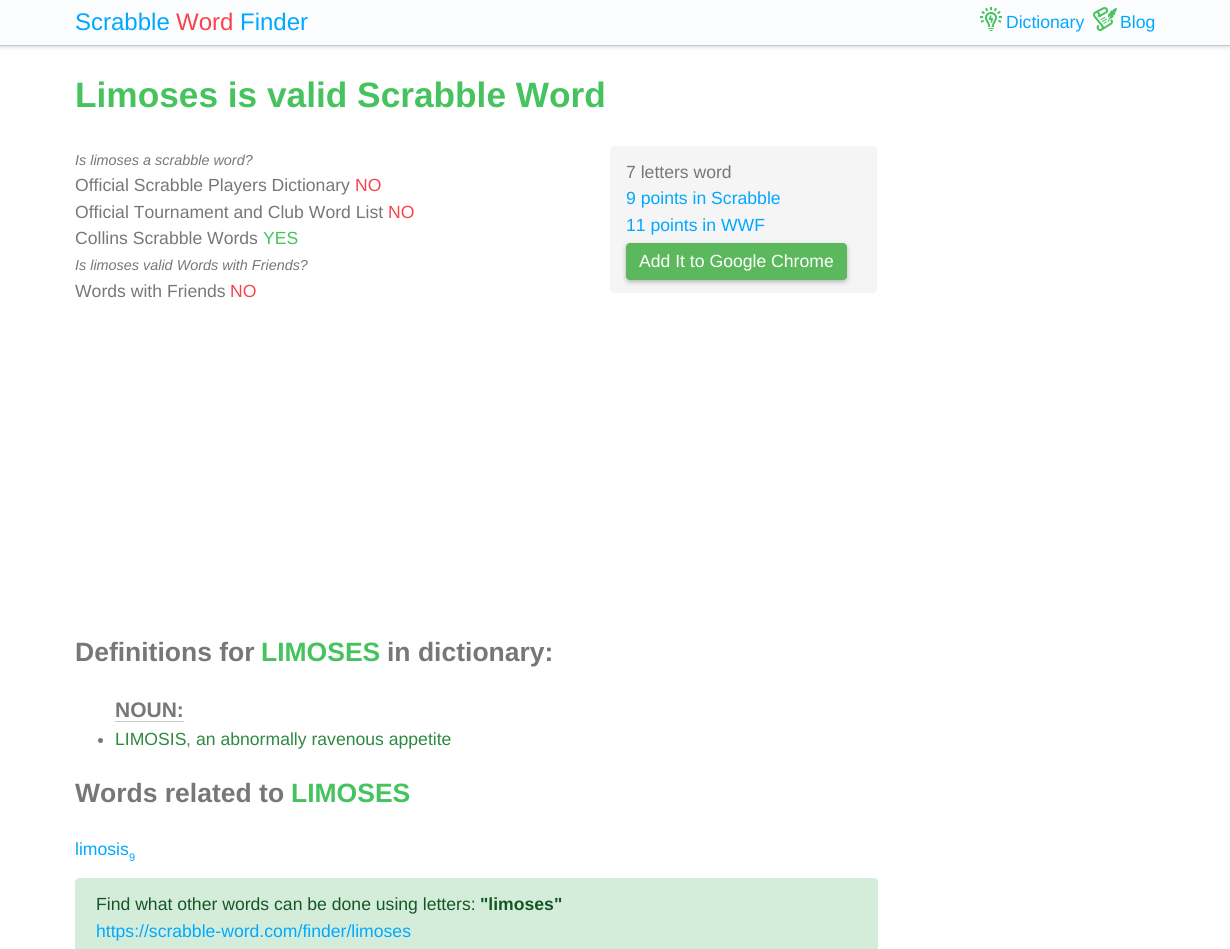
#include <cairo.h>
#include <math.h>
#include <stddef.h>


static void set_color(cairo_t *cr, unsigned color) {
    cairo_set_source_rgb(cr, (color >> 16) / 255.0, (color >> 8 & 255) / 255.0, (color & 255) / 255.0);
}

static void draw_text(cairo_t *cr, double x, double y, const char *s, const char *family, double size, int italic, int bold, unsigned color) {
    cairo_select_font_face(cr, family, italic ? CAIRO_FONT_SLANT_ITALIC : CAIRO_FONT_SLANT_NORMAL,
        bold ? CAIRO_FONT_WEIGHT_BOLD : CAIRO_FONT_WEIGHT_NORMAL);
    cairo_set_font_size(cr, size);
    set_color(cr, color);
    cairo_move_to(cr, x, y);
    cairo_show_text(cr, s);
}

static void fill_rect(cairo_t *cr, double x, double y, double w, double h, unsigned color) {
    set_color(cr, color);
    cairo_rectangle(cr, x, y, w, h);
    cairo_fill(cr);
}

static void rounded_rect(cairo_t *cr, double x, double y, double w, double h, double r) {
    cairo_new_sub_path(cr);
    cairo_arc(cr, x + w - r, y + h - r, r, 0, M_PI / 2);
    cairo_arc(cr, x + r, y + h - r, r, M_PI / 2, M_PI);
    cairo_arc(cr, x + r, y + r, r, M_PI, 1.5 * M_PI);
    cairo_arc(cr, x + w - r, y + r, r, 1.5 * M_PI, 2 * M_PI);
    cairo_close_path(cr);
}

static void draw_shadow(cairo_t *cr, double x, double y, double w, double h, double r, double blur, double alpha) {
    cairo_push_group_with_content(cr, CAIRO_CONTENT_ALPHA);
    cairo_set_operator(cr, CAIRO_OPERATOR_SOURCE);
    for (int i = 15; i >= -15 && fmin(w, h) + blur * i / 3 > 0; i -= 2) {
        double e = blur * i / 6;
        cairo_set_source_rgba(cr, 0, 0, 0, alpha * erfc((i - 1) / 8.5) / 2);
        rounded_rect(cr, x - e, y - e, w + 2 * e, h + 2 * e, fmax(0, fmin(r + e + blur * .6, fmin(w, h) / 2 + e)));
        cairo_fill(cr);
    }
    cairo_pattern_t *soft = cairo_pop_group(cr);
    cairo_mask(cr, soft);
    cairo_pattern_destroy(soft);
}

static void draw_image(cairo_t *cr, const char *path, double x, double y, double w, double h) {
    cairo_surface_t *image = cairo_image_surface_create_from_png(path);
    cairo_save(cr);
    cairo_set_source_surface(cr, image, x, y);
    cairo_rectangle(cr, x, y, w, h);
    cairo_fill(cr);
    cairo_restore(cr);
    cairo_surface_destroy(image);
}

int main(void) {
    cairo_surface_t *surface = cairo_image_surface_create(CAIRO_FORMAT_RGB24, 1230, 949);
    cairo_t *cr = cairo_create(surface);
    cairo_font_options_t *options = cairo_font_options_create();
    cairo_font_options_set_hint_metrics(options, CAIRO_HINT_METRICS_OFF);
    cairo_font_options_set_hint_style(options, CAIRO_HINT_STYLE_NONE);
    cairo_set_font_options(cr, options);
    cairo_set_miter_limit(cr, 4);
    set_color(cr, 0xFFFFFF);
    cairo_paint(cr);
    set_color(cr, 0xC7C7C7);
    draw_shadow(cr, 0, 0, 1230, 46, 0, 2.5, 1);
    fill_rect(cr, 0, 0, 1230, 45, 0xFBFCFD);
    fill_rect(cr, 0, 45, 1230, 1, 0xC7C7C7);
    draw_text(cr, 75, 30, "Scrabble", "Liberation Sans", 24, 0, 0, 0x00A8FF);
    draw_text(cr, 176, 30, "Word", "Liberation Sans", 24, 0, 0, 0xFA424A);
    draw_text(cr, 240, 30, "Finder", "Liberation Sans", 24, 0, 0, 0x00A8FF);
    draw_image(cr, "assets/img1.png", 980, 7, 22, 24);
    draw_text(cr, 1006, 28, "Dictionary", "Liberation Sans", 17.6, 0, 0, 0x00A8FF);
    draw_image(cr, "assets/img2.png", 1093, 7, 24, 24);
    draw_text(cr, 1120, 28, "Blog", "Liberation Sans", 17.6, 0, 0, 0x00A8FF);
    draw_text(cr, 75, 107, "Limoses is valid Scrabble Word", "Liberation Sans", 35.25, 0, 1, 0x46C35F);
    draw_text(cr, 75, 165, "Is limoses a scrabble word?", "Liberation Sans", 14.4, 1, 0, 0x777777);
    draw_text(cr, 75, 191, "Official Scrabble Players Dictionary", "Liberation Sans", 17.6, 0, 0, 0x777777);
    draw_text(cr, 355, 191, "NO", "Liberation Sans", 17.6, 0, 0, 0xFA424A);
    draw_text(cr, 75, 218, "Official Tournament and Club Word List", "Liberation Sans", 17.6, 0, 0, 0x777777);
    draw_text(cr, 388, 218, "NO", "Liberation Sans", 17.6, 0, 0, 0xFA424A);
    draw_text(cr, 75, 244, "Collins Scrabble Words", "Liberation Sans", 17.6, 0, 0, 0x777777);
    draw_text(cr, 263, 244, "YES", "Liberation Sans", 17.6, 0, 0, 0x46C35F);
    draw_text(cr, 75, 270, "Is limoses valid Words with Friends?", "Liberation Sans", 14.4, 1, 0, 0x777777);
    draw_text(cr, 75, 297, "Words with Friends", "Liberation Sans", 17.6, 0, 0, 0x777777);
    draw_text(cr, 230, 297, "NO", "Liberation Sans", 17.6, 0, 0, 0xFA424A);
    set_color(cr, 0xF5F5F5);
    rounded_rect(cr, 610, 146, 267, 147, 4);
    cairo_fill(cr);
    draw_text(cr, 626, 178, "7 letters word", "Liberation Sans", 17.6, 0, 0, 0x777777);
    draw_text(cr, 626, 204, "9 points in Scrabble", "Liberation Sans", 17.6, 0, 0, 0x00A8FF);
    draw_text(cr, 626, 231, "11 points in WWF", "Liberation Sans", 17.6, 0, 0, 0x00A8FF);
    set_color(cr, 0x000000);
    draw_shadow(cr, 626, 245, 221, 37, 4, 2.5, 0.26);
    set_color(cr, 0x5CB85C);
    rounded_rect(cr, 626.5, 243.5, 220, 36, 3.5);
    cairo_fill_preserve(cr);
    cairo_set_line_width(cr, 1);
    cairo_stroke(cr);
    draw_text(cr, 639, 267, "Add It to Google Chrome", "Liberation Sans", 17.6, 0, 0, 0xFFFFFF);
    draw_text(cr, 75, 661, "Definitions for", "Liberation Sans", 26.5, 0, 1, 0x777777);
    draw_text(cr, 261, 661, "LIMOSES", "Liberation Sans", 26.5, 0, 1, 0x46C35F);
    draw_text(cr, 387, 661, "in dictionary:", "Liberation Sans", 26.5, 0, 1, 0x777777);
    draw_text(cr, 115, 717, "NOUN:", "Liberation Sans", 21, 0, 1, 0x777777);
    fill_rect(cr, 115, 721, 69, 1, 0xC7C7C7);
    set_color(cr, 0x777777);
    cairo_new_path(cr);
    cairo_arc(cr, 100.5, 740.5, 2.5, 0, 2 * M_PI);
    cairo_fill(cr);
    draw_text(cr, 115, 745, "LIMOSIS", "Liberation Sans", 17.6, 0, 0, 0x2E8840);
    draw_text(cr, 196, 745, "an abnormally ravenous appetite", "Liberation Sans", 17.6, 0, 0, 0x2E8840);
    draw_text(cr, 186, 745, ",", "Liberation Sans", 17.6, 0, 0, 0x777777);
    draw_text(cr, 75, 802, "Words related to", "Liberation Sans", 26.5, 0, 1, 0x777777);
    draw_text(cr, 291, 802, "LIMOSES", "Liberation Sans", 26.5, 0, 1, 0x46C35F);
    draw_text(cr, 75, 855, "limosis", "Liberation Sans", 17.6, 0, 0, 0x00A8FF);
    draw_text(cr, 129, 861, "9", "Liberation Sans", 11, 0, 0, 0x00A8FF);
    set_color(cr, 0xD4EDDA);
    rounded_rect(cr, 75, 878, 803, 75, 4);
    cairo_fill(cr);
    draw_text(cr, 96, 910, "Find what other words can be done using letters:", "Liberation Sans", 17.6, 0, 0, 0x155724);
    draw_text(cr, 480, 910, "\"limoses\"", "Liberation Sans", 17.6, 0, 1, 0x155724);
    draw_text(cr, 96, 937, "https://scrabble-word.com/finder/limoses", "Liberation Sans", 17.6, 0, 0, 0x00A8FF);
    cairo_surface_write_to_png(surface, "output.png");
    cairo_font_options_destroy(options);
    cairo_destroy(cr);
    cairo_surface_destroy(surface);
    return 0;
}
